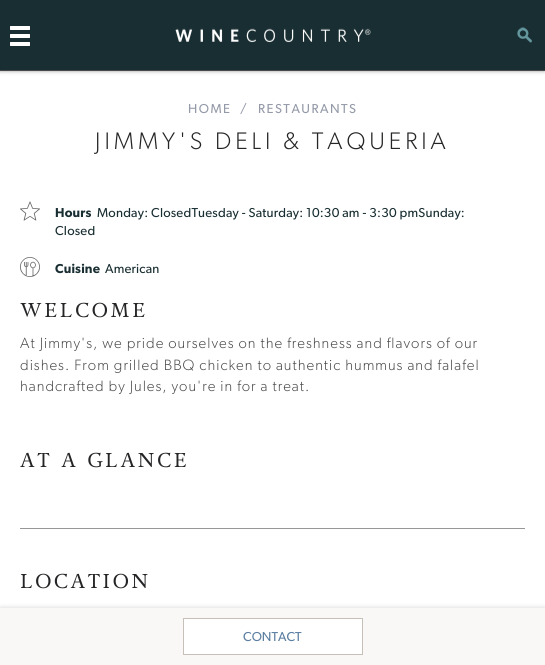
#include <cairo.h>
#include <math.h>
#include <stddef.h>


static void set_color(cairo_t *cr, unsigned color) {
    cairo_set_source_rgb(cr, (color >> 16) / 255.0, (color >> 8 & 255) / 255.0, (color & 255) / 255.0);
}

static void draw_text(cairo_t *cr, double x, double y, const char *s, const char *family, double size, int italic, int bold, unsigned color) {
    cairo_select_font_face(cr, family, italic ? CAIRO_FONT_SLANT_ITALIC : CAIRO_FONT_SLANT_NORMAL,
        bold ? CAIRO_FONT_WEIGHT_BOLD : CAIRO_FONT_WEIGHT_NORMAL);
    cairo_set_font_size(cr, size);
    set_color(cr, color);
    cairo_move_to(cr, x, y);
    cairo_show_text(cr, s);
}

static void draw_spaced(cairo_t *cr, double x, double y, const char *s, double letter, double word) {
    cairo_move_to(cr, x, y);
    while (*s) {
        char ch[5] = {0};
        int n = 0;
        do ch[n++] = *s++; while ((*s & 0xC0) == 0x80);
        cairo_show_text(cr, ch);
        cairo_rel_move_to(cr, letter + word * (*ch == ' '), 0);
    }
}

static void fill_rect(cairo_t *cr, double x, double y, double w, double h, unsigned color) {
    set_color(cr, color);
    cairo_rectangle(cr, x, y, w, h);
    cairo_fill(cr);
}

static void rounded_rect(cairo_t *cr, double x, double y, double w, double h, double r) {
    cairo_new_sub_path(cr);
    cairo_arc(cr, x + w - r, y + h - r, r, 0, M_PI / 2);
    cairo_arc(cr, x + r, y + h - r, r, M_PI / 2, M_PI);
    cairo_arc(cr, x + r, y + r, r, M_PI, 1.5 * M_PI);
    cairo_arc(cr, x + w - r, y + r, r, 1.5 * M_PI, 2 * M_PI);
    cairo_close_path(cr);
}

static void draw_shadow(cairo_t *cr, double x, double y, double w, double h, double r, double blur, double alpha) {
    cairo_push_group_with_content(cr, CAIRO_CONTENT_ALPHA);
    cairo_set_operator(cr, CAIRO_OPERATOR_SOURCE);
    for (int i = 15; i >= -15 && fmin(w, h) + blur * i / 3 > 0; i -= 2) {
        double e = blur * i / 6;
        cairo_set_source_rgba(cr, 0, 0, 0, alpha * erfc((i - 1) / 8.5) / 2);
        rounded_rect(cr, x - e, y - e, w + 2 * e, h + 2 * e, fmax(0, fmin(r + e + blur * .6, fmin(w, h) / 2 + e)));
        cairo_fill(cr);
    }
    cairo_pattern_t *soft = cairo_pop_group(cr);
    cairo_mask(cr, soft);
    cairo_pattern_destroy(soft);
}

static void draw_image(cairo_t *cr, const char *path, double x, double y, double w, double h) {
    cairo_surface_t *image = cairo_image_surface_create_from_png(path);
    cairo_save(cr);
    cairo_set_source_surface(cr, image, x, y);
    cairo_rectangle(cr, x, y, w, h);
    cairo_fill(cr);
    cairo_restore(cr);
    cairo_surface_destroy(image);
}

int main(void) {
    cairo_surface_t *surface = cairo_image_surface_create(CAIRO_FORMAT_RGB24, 545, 665);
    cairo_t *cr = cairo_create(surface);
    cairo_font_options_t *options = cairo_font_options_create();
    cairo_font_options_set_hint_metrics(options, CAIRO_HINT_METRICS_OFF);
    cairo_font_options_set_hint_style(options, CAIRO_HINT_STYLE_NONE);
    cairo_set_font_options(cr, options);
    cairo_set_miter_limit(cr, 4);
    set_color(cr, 0xFFFFFF);
    cairo_paint(cr);
    set_color(cr, 0x000000);
    draw_shadow(cr, 0, 0, 545, 71, 0, 2, 0.4);
    fill_rect(cr, 0, 70, 545, 1, 0x484848);
    fill_rect(cr, 0, 0, 545, 70, 0x192E32);
    draw_image(cr, "assets/img1.png", 10, 26, 20, 20);
    draw_image(cr, "assets/img2.png", 175, 28, 196, 15);
    draw_image(cr, "assets/img3.png", 517, 27, 15, 16);
    cairo_select_font_face(cr, "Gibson", CAIRO_FONT_SLANT_NORMAL, CAIRO_FONT_WEIGHT_NORMAL);
    cairo_set_font_size(cr, 13);
    set_color(cr, 0x949AA8);
    draw_spaced(cr, 188, 113, "HOME", 1.5, 0);
    draw_spaced(cr, 240, 113, "/", 1.5, 0);
    draw_spaced(cr, 258, 113, "RESTAURANTS", 1.5, 0);
    cairo_select_font_face(cr, "Gibson Light", CAIRO_FONT_SLANT_NORMAL, CAIRO_FONT_WEIGHT_NORMAL);
    cairo_set_font_size(cr, 24);
    set_color(cr, 0x252527);
    draw_spaced(cr, 95, 149, "JIMMY'S DELI & TAQUERIA", 4, 0);
    draw_image(cr, "assets/img4.png", 20, 201, 20, 20);
    cairo_select_font_face(cr, "Gibson SemiBold", CAIRO_FONT_SLANT_NORMAL, CAIRO_FONT_WEIGHT_NORMAL);
    cairo_set_font_size(cr, 13);
    set_color(cr, 0x192E32);
    draw_spaced(cr, 55, 217, "Hours", 0.2, 0);
    cairo_select_font_face(cr, "Gibson", CAIRO_FONT_SLANT_NORMAL, CAIRO_FONT_WEIGHT_NORMAL);
    draw_spaced(cr, 97, 217, "Monday: ClosedTuesday - Saturday: 10:30 am - 3:30 pmSunday:", 0.2, 0);
    draw_spaced(cr, 55, 235, "Closed", 0.2, 0);
    draw_image(cr, "assets/img5.png", 20, 257, 20, 20);
    cairo_select_font_face(cr, "Gibson SemiBold", CAIRO_FONT_SLANT_NORMAL, CAIRO_FONT_WEIGHT_NORMAL);
    draw_spaced(cr, 55, 273, "Cuisine", 0.2, 0);
    cairo_select_font_face(cr, "Gibson", CAIRO_FONT_SLANT_NORMAL, CAIRO_FONT_WEIGHT_NORMAL);
    draw_spaced(cr, 105, 273, "American", 0.2, 0);
    set_color(cr, 0x000000);
    draw_shadow(cr, 0, 607, 545, 57, 0, 2, 0.13);
    fill_rect(cr, 0, 608, 545, 57, 0xF9F8F7);
    set_color(cr, 0xFFFFFF);
    cairo_rectangle(cr, 183.5, 618.5, 179, 36);
    cairo_fill_preserve(cr);
    set_color(cr, 0xC6C0B8);
    cairo_set_line_width(cr, 1);
    cairo_stroke(cr);
    draw_text(cr, 243, 641, "CONTACT", "Gibson", 13, 0, 0, 0x5B7EA1);
    cairo_select_font_face(cr, "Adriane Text", CAIRO_FONT_SLANT_NORMAL, CAIRO_FONT_WEIGHT_NORMAL);
    cairo_set_font_size(cr, 20);
    set_color(cr, 0x252527);
    draw_spaced(cr, 20, 317, "WELCOME", 2.5, 0);
    cairo_select_font_face(cr, "Gibson Light", CAIRO_FONT_SLANT_NORMAL, CAIRO_FONT_WEIGHT_NORMAL);
    cairo_set_font_size(cr, 15);
    set_color(cr, 0x494949);
    draw_spaced(cr, 20, 348, "At Jimmy's, we pride ourselves on the freshness and flavors of our", 1, 0);
    draw_spaced(cr, 20, 370, "dishes. From grilled BBQ chicken to authentic hummus and falafel", 1, 0);
    draw_spaced(cr, 20, 391, "handcrafted by Jules, you're in for a treat.", 1, 0);
    cairo_select_font_face(cr, "Adriane Text", CAIRO_FONT_SLANT_NORMAL, CAIRO_FONT_WEIGHT_NORMAL);
    cairo_set_font_size(cr, 20);
    set_color(cr, 0x252527);
    draw_spaced(cr, 20, 467, "AT A GLANCE", 2.5, 0);
    fill_rect(cr, 20, 528, 505, 1, 0x979797);
    set_color(cr, 0x252527);
    draw_spaced(cr, 20, 588, "LOCATION", 2.5, 0);
    cairo_surface_write_to_png(surface, "output.png");
    cairo_font_options_destroy(options);
    cairo_destroy(cr);
    cairo_surface_destroy(surface);
    return 0;
}
